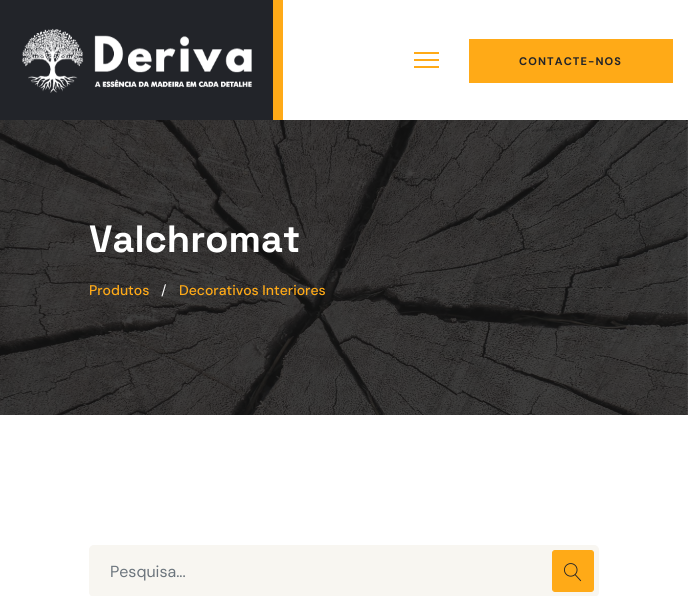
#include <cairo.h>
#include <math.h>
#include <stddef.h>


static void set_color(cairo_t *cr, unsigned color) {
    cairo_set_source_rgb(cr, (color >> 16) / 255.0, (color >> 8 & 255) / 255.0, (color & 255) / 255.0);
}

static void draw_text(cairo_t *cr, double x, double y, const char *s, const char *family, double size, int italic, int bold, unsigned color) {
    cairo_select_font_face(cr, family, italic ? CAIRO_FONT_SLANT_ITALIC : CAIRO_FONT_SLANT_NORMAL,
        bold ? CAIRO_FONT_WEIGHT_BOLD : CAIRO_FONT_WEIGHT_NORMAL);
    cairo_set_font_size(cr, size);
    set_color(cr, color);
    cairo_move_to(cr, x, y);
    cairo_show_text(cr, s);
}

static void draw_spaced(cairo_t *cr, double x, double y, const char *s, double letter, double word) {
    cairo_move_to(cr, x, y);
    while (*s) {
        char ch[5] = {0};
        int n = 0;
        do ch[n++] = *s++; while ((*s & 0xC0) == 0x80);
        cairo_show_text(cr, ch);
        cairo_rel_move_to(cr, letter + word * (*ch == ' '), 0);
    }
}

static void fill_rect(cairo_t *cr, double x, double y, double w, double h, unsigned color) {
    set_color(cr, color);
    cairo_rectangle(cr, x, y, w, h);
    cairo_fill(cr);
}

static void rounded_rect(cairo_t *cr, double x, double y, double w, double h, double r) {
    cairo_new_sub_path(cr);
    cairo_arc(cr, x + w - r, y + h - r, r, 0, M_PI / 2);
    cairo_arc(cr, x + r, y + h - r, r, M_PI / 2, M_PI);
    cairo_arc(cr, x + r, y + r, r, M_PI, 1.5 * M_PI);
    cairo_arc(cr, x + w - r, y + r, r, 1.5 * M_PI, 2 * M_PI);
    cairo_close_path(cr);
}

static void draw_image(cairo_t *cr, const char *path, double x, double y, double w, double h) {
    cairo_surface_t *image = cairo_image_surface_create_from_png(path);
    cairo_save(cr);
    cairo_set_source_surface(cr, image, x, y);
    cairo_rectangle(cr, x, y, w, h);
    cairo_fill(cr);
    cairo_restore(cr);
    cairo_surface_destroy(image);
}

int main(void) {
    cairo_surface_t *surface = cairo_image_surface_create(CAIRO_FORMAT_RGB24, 688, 596);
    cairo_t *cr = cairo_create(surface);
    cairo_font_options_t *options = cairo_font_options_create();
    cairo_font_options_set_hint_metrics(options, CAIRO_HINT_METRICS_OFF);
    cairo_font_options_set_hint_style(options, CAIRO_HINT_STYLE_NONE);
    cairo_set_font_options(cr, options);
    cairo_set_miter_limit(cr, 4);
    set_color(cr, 0xFFFFFF);
    cairo_paint(cr);
    fill_rect(cr, 0, 0, 273, 120, 0x222429);
    fill_rect(cr, 273, 0, 10, 120, 0xFFAA17);
    draw_image(cr, "assets/img1.png", 22, 28, 230, 65);
    fill_rect(cr, 414, 52, 25, 2, 0xFFAA17);
    fill_rect(cr, 414, 59, 25, 2, 0xFFAA17);
    fill_rect(cr, 414, 66, 25, 2, 0xFFAA17);
    fill_rect(cr, 469, 39, 204, 44, 0xFFAA17);
    cairo_select_font_face(cr, "DM Sans", CAIRO_FONT_SLANT_NORMAL, CAIRO_FONT_WEIGHT_BOLD);
    cairo_set_font_size(cr, 11);
    set_color(cr, 0x222429);
    draw_spaced(cr, 519, 65, "CONTACTE-NOS", 1.1, 0);
    draw_image(cr, "assets/img2.png", 0, 120, 688, 295);
    draw_text(cr, 89, 252, "Valchromat", "Space Grotesk", 38, 0, 1, 0xFFFFFF);
    draw_text(cr, 89, 295, "Produtos", "DM Sans Medium", 14, 0, 0, 0xFFAA17);
    draw_text(cr, 161, 295, "/", "DM Sans", 14, 0, 0, 0xFFFFFF);
    draw_text(cr, 179, 295, "Decorativos Interiores", "DM Sans Medium", 14, 0, 0, 0xFFAA17);
    set_color(cr, 0xF8F6F1);
    rounded_rect(cr, 89.5, 545.5, 509, 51, 4.5);
    cairo_fill_preserve(cr);
    cairo_set_line_width(cr, 1);
    cairo_stroke(cr);
    draw_text(cr, 110, 577, "Pesquisa...", "DM Sans", 16, 0, 0, 0x6C757D);
    set_color(cr, 0xFFAA17);
    rounded_rect(cr, 552.5, 550.5, 41, 41, 2.5);
    cairo_fill_preserve(cr);
    cairo_stroke(cr);
    draw_image(cr, "assets/img3.png", 564, 563, 18, 19);
    cairo_surface_write_to_png(surface, "output.png");
    cairo_font_options_destroy(options);
    cairo_destroy(cr);
    cairo_surface_destroy(surface);
    return 0;
}
